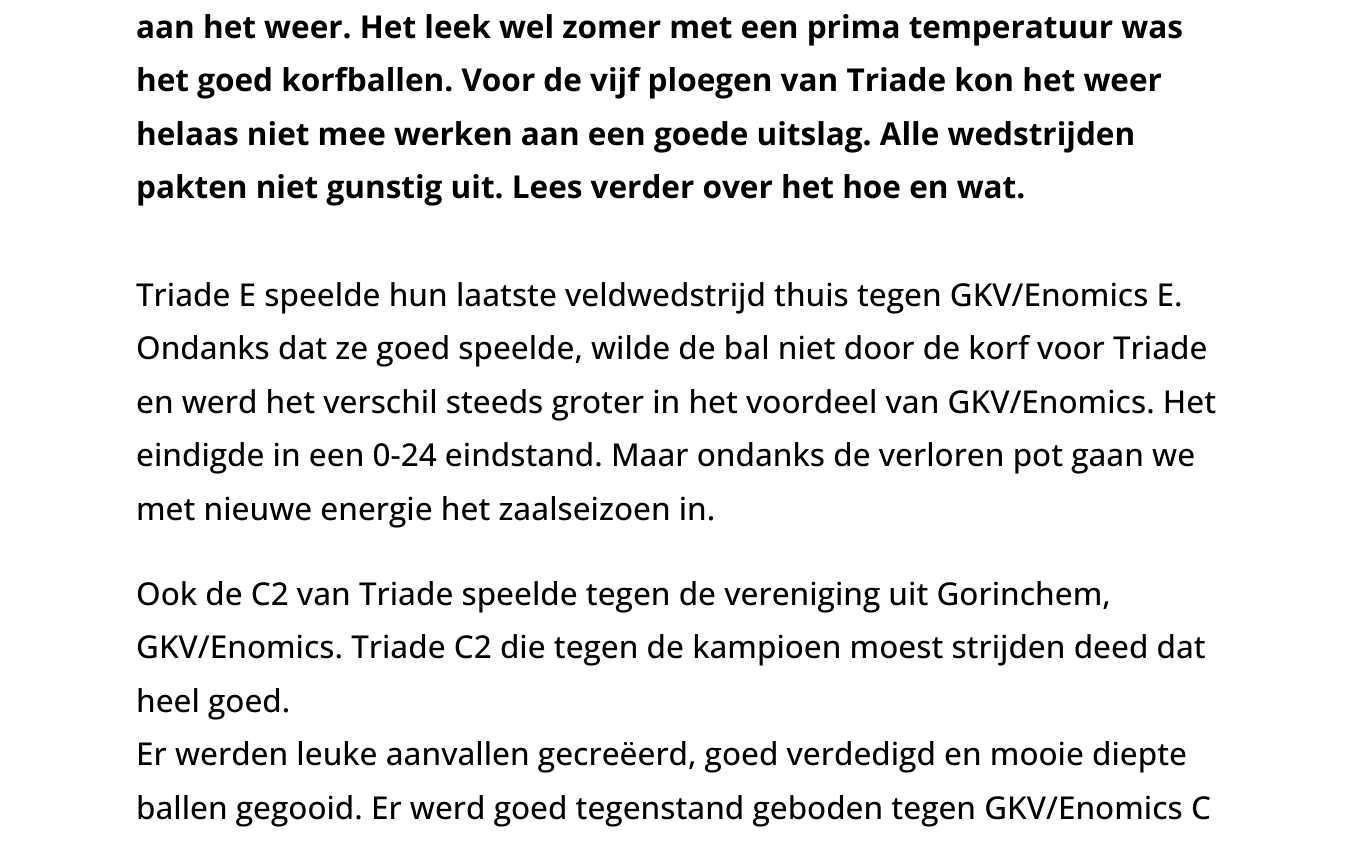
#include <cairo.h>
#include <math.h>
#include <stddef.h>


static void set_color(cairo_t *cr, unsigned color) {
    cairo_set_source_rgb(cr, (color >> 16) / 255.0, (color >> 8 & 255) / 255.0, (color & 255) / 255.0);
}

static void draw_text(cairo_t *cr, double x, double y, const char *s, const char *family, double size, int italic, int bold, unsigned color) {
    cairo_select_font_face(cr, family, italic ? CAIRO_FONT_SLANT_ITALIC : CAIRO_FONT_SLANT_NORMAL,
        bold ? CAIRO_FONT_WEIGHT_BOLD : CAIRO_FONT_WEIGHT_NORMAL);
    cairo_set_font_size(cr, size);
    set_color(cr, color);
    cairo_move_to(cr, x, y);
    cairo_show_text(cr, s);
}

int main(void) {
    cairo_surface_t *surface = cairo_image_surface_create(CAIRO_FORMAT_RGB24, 1363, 857);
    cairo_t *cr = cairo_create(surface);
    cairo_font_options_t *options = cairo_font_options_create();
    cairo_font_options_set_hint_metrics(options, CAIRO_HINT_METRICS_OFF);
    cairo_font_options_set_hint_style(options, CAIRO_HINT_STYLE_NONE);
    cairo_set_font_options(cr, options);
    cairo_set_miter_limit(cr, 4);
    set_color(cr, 0xFFFFFF);
    cairo_paint(cr);
    draw_text(cr, 136, 38, "aan het weer. Het leek wel zomer met een prima temperatuur was", "Open Sans", 31.5, 0, 1, 0x000000);
    draw_text(cr, 136, 91, "het goed korfballen. Voor de vijf ploegen van Triade kon het weer", "Open Sans", 31.5, 0, 1, 0x000000);
    draw_text(cr, 136, 145, "helaas niet mee werken aan een goede uitslag. Alle wedstrijden", "Open Sans", 31.5, 0, 1, 0x000000);
    draw_text(cr, 136, 198, "pakten niet gunstig uit. Lees verder over het hoe en wat.", "Open Sans", 31.5, 0, 1, 0x000000);
    draw_text(cr, 136, 306, "Triade E speelde hun laatste veldwedstrijd thuis tegen GKV/Enomics E.", "Open Sans Medium", 31.5, 0, 0, 0x000000);
    draw_text(cr, 136, 359, "Ondanks dat ze goed speelde, wilde de bal niet door de korf voor Triade", "Open Sans Medium", 31.5, 0, 0, 0x000000);
    draw_text(cr, 136, 413, "en werd het verschil steeds groter in het voordeel van GKV/Enomics. Het", "Open Sans Medium", 31.5, 0, 0, 0x000000);
    draw_text(cr, 136, 466, "eindigde in een 0-24 eindstand. Maar ondanks de verloren pot gaan we", "Open Sans Medium", 31.5, 0, 0, 0x000000);
    draw_text(cr, 136, 520, "met nieuwe energie het zaalseizoen in.", "Open Sans Medium", 31.5, 0, 0, 0x000000);
    draw_text(cr, 136, 605, "Ook de C2 van Triade speelde tegen de vereniging uit Gorinchem,", "Open Sans Medium", 31.5, 0, 0, 0x000000);
    draw_text(cr, 136, 658, "GKV/Enomics. Triade C2 die tegen de kampioen moest strijden deed dat", "Open Sans Medium", 31.5, 0, 0, 0x000000);
    draw_text(cr, 136, 712, "heel goed.", "Open Sans Medium", 31.5, 0, 0, 0x000000);
    draw_text(cr, 136, 765, "Er werden leuke aanvallen gecreëerd, goed verdedigd en mooie diepte", "Open Sans Medium", 31.5, 0, 0, 0x000000);
    draw_text(cr, 136, 819, "ballen gegooid. Er werd goed tegenstand geboden tegen GKV/Enomics C", "Open Sans Medium", 31.5, 0, 0, 0x000000);
    cairo_surface_write_to_png(surface, "output.png");
    cairo_font_options_destroy(options);
    cairo_destroy(cr);
    cairo_surface_destroy(surface);
    return 0;
}
